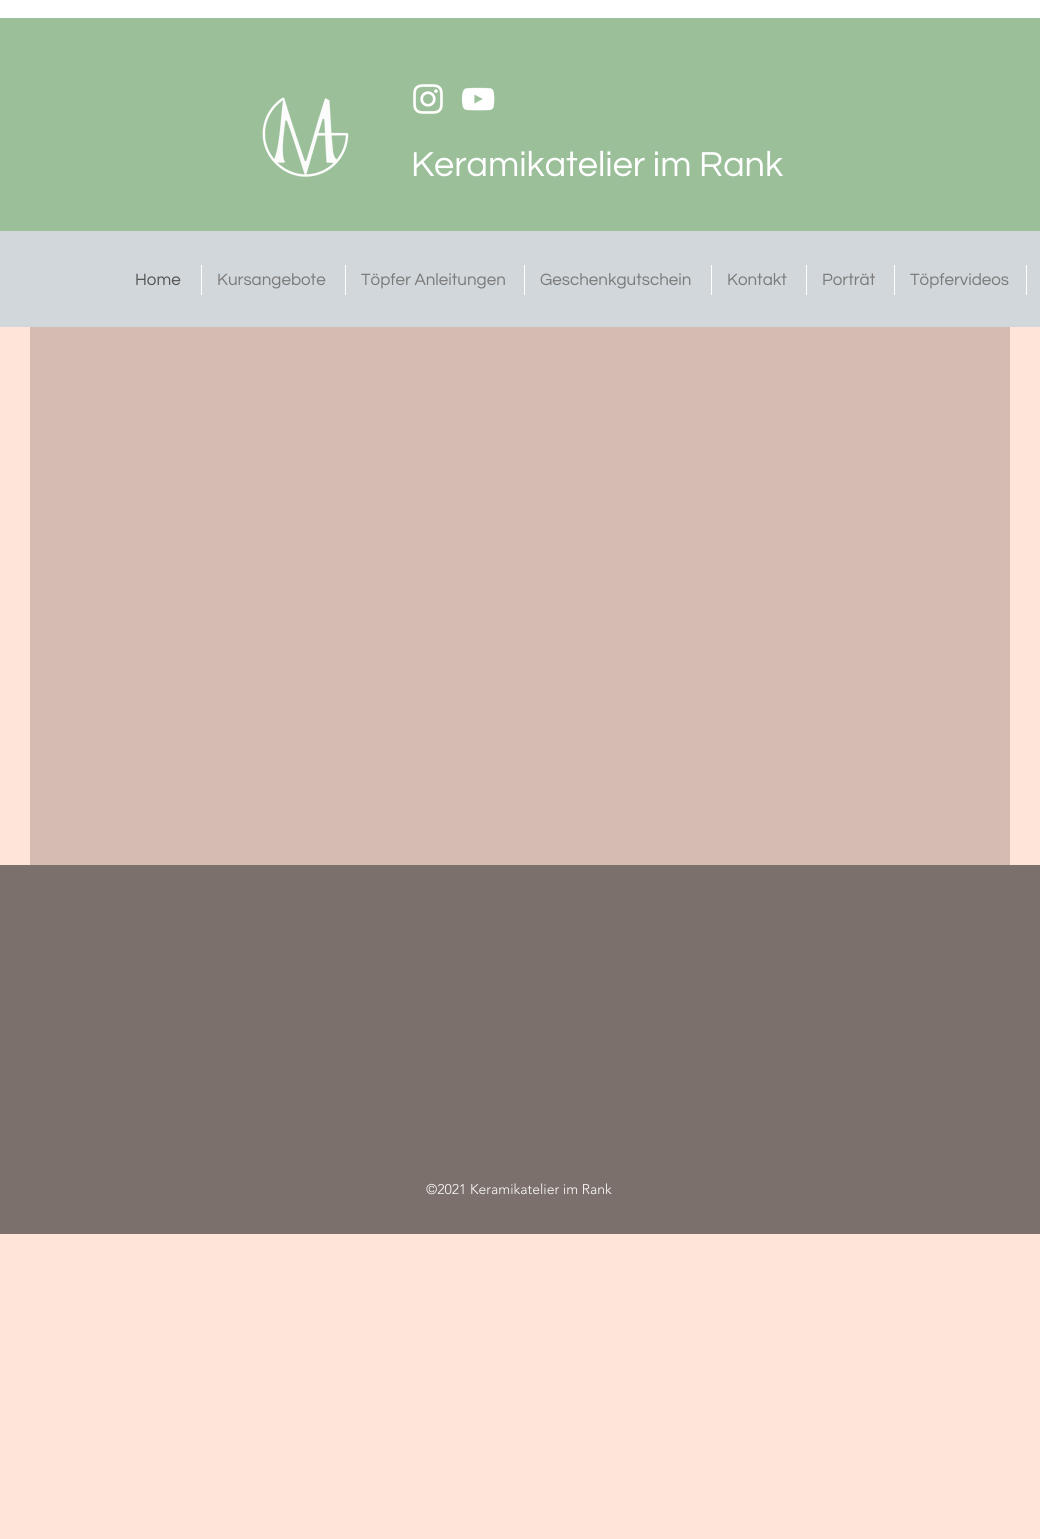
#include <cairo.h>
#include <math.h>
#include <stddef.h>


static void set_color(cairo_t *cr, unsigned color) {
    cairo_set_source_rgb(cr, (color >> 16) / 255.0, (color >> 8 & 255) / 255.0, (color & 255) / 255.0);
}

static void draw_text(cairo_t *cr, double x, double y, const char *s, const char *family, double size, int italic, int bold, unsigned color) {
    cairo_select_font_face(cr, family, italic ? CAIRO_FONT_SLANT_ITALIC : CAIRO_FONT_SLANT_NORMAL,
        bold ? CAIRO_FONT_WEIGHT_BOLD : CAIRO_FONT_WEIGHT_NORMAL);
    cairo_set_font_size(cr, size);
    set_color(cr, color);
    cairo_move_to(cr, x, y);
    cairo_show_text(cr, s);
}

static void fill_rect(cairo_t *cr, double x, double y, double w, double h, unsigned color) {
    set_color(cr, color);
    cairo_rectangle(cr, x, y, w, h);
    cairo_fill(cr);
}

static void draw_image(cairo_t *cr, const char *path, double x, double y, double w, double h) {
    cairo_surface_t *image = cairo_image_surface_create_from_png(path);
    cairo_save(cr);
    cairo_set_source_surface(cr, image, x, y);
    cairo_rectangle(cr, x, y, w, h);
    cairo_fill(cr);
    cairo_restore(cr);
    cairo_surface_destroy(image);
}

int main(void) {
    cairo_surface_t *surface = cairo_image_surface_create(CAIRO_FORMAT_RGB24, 1040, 1539);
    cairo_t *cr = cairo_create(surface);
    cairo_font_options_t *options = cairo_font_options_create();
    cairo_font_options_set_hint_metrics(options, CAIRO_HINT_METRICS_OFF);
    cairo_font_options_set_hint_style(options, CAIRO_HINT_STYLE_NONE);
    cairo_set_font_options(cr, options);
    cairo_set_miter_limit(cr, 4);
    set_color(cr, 0xFFE4D9);
    cairo_paint(cr);
    fill_rect(cr, 0, 0, 1040, 18, 0xFFFFFF);
    fill_rect(cr, 0, 18, 1040, 213, 0x9ABF99);
    draw_image(cr, "assets/img1.png", 262, 97, 87, 80);
    draw_image(cr, "assets/img2.png", 413, 84, 30, 30);
    draw_image(cr, "assets/img3.png", 461, 87, 34, 24);
    draw_text(cr, 411, 176, "Keramikatelier im Rank", "Questrial", 36, 0, 0, 0xFFFFFF);
    fill_rect(cr, 0, 231, 1040, 96, 0xD2D7DB);
    draw_text(cr, 135, 285, "Home", "Questrial", 17, 0, 0, 0x545454);
    fill_rect(cr, 201, 265, 1, 30, 0xFFFFFF);
    draw_text(cr, 217, 285, "Kursangebote", "Questrial", 17, 0, 0, 0x7A7A7A);
    fill_rect(cr, 345, 265, 1, 30, 0xFFFFFF);
    draw_text(cr, 361, 285, "Töpfer Anleitungen", "Questrial", 17, 0, 0, 0x7A7A7A);
    fill_rect(cr, 524, 265, 1, 30, 0xFFFFFF);
    draw_text(cr, 540, 285, "Geschenkgutschein", "Questrial", 17, 0, 0, 0x7A7A7A);
    fill_rect(cr, 711, 265, 1, 30, 0xFFFFFF);
    draw_text(cr, 727, 285, "Kontakt", "Questrial", 17, 0, 0, 0x7A7A7A);
    fill_rect(cr, 806, 265, 1, 30, 0xFFFFFF);
    draw_text(cr, 822, 285, "Porträt", "Questrial", 17, 0, 0, 0x7A7A7A);
    fill_rect(cr, 894, 265, 1, 30, 0xFFFFFF);
    draw_text(cr, 910, 285, "Töpfervideos", "Questrial", 17, 0, 0, 0x7A7A7A);
    fill_rect(cr, 1026, 265, 1, 30, 0xFFFFFF);
    fill_rect(cr, 30, 327, 980, 538, 0xD4BCB3);
    fill_rect(cr, 0, 865, 1040, 369, 0x7B706B);
    draw_text(cr, 426, 1194, "©2021 Keramikatelier im Rank", "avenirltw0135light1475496 Light", 14, 0, 0, 0xFFFFFF);
    cairo_surface_write_to_png(surface, "output.png");
    cairo_font_options_destroy(options);
    cairo_destroy(cr);
    cairo_surface_destroy(surface);
    return 0;
}
